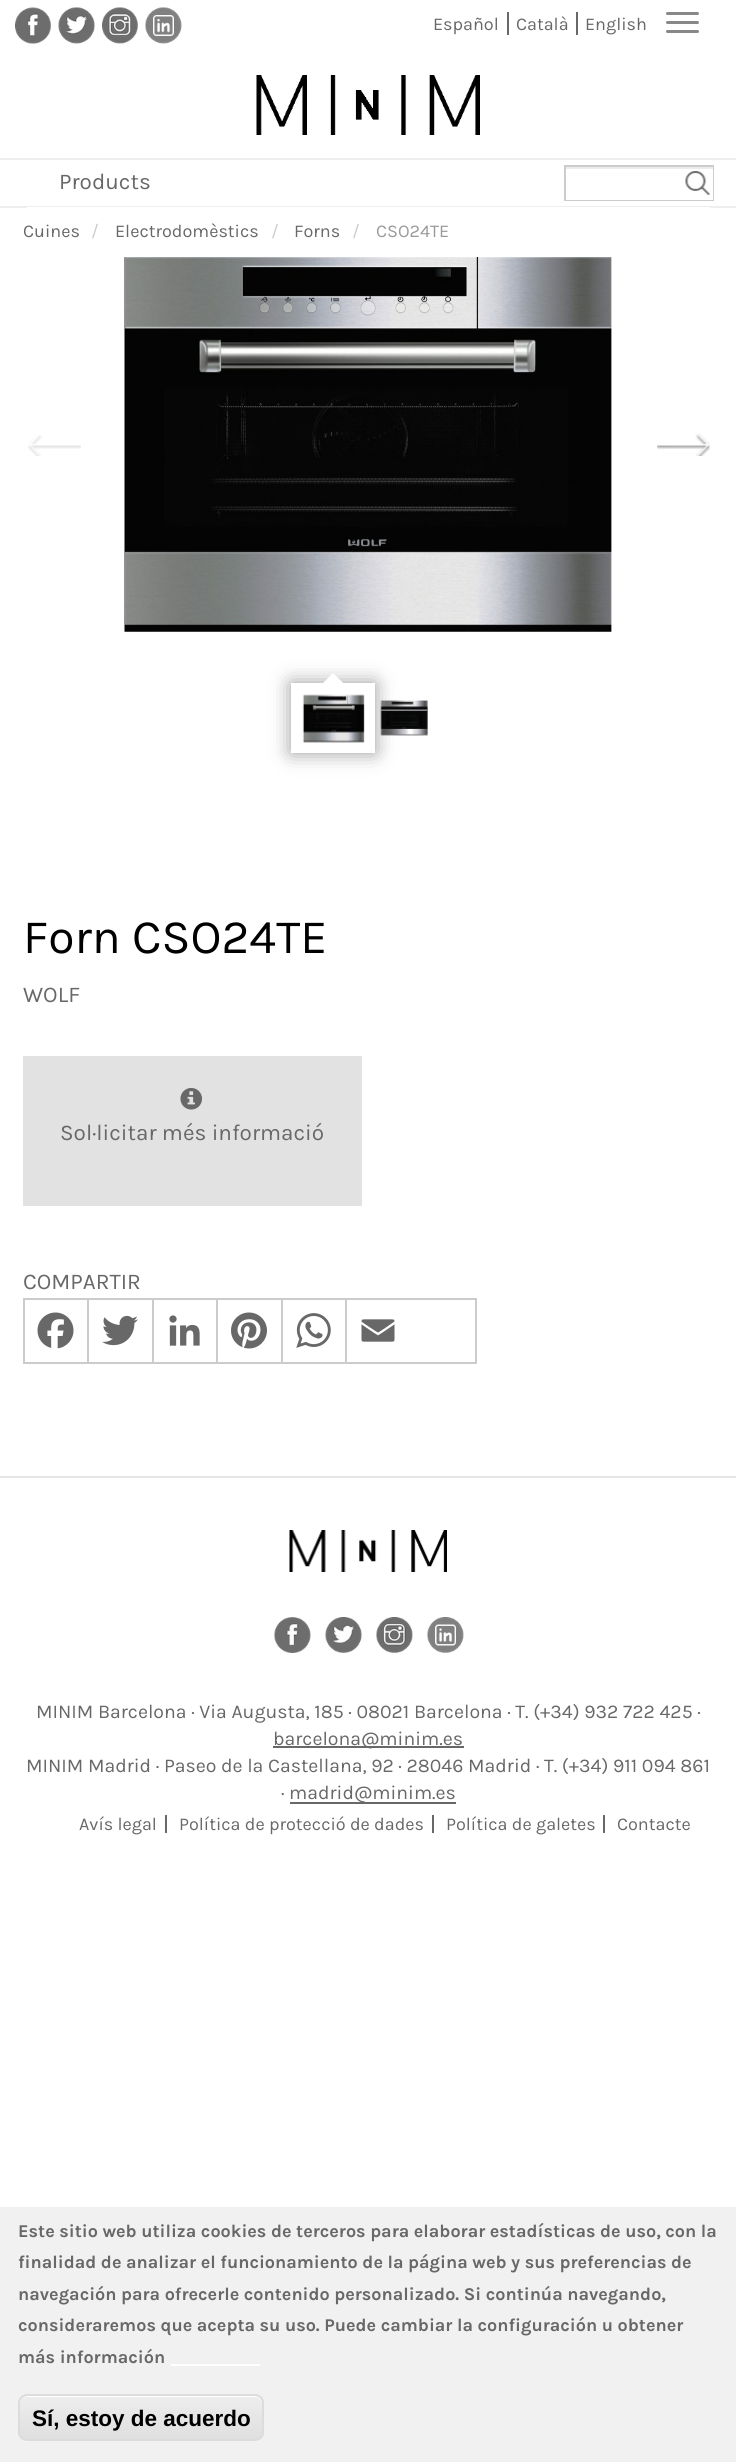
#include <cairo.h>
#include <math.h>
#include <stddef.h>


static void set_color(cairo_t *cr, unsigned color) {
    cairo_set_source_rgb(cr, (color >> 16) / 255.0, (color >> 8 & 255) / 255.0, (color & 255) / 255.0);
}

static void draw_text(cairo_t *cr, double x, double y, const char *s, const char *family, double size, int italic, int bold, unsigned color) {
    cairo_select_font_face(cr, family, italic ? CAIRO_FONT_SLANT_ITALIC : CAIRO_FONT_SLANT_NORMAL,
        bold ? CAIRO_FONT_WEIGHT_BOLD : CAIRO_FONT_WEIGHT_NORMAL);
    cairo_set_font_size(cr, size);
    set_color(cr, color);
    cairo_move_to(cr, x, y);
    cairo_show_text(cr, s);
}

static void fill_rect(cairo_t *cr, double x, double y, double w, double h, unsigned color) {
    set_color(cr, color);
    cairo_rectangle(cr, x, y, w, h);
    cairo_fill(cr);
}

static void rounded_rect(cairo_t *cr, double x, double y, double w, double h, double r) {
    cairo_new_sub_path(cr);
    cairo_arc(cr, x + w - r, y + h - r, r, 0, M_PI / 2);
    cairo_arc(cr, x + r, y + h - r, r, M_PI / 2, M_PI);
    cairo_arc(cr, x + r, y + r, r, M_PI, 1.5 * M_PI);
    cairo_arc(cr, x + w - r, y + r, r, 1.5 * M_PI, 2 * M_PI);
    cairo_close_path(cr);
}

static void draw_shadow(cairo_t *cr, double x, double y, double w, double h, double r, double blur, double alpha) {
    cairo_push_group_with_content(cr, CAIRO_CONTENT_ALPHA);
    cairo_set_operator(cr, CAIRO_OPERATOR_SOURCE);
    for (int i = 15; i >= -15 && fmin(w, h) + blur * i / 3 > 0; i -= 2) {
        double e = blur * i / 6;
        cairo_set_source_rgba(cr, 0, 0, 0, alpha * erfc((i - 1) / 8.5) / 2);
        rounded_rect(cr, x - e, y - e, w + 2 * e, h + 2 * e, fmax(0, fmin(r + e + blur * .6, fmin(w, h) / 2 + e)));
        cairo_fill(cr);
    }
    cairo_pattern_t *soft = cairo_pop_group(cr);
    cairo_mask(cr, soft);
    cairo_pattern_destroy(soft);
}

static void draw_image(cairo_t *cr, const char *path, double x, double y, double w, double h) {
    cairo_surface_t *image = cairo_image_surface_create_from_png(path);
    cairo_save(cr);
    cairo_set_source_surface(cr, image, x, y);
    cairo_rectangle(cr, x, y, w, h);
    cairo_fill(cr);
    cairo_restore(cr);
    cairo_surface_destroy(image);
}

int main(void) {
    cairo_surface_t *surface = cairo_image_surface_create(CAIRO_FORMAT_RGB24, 736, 2462);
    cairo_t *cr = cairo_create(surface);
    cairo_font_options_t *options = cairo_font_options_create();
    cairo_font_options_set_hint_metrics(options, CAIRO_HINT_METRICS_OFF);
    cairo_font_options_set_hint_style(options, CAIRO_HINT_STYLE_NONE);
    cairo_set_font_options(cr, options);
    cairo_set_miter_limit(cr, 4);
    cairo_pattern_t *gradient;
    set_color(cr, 0xFFFFFF);
    cairo_paint(cr);
    draw_image(cr, "assets/img1.png", 15, 7, 36, 37);
    draw_image(cr, "assets/img2.png", 58, 7, 37, 37);
    draw_image(cr, "assets/img3.png", 102, 7, 36, 37);
    draw_image(cr, "assets/img4.png", 145, 7, 37, 37);
    fill_rect(cr, 507, 12, 2, 23, 0x686868);
    draw_text(cr, 433, 30, "Español", "Karla", 18, 0, 0, 0x686868);
    fill_rect(cr, 576, 12, 2, 23, 0x686868);
    draw_text(cr, 516, 30, "Català", "Karla", 18, 0, 0, 0x686868);
    draw_text(cr, 585, 30, "English", "Karla", 18, 0, 0, 0x686868);
    draw_image(cr, "assets/img5.png", 256, 75, 224, 60);
    cairo_rectangle(cr, 565, 166, 148, 34);
    set_color(cr, 0xCCCCCC);
    cairo_stroke(cr);
    fill_rect(cr, 566, 169, 147, 31, 0xFFFFFF);
    draw_image(cr, "assets/img6.png", 685, 171, 25, 24);
    fill_rect(cr, 566, 167, 147, 2, 0xECECEC);
    set_color(cr, 0x888888);
    rounded_rect(cr, 666, 12, 33, 3, 1.5);
    cairo_fill(cr);
    rounded_rect(cr, 666, 21, 33, 3, 1.5);
    cairo_fill(cr);
    rounded_rect(cr, 666, 30, 33, 3, 1.5);
    cairo_fill(cr);
    fill_rect(cr, 0, 158, 736, 2, 0xEEEEEE);
    fill_rect(cr, 0, 206, 736, 2, 0xEEEEEE);
    draw_text(cr, 59, 189, "Products", "Karla", 22.5, 0, 0, 0x686868);
    set_color(cr, 0xFFFFFF);
    rounded_rect(cr, 23, 207, 691, 50, 6);
    cairo_fill(cr);
    draw_text(cr, 23, 237, "Cuines", "Karla", 18, 0, 0, 0x686868);
    draw_text(cr, 91, 237, "/", "Karla", 18, 0, 0, 0xCCCCCC);
    draw_text(cr, 115, 237, "Electrodomèstics", "Karla", 18, 0, 0, 0x686868);
    draw_text(cr, 271, 237, "/", "Karla", 18, 0, 0, 0xCCCCCC);
    draw_text(cr, 294, 237, "Forns", "Karla", 18, 0, 0, 0x686868);
    draw_text(cr, 352, 237, "/", "Karla", 18, 0, 0, 0xCCCCCC);
    draw_text(cr, 376, 237, "CSO24TE", "Karla", 18, 0, 0, 0x999999);
    draw_image(cr, "assets/img7.png", 124, 257, 488, 375);
    draw_image(cr, "assets/img8.png", 28, 435, 53, 21);
    draw_image(cr, "assets/img9.png", 657, 433, 53, 23);
    draw_image(cr, "assets/img11.png", 380, 700, 48, 36);
    set_color(cr, 0x000000);
    draw_shadow(cr, 291, 683, 84, 70, 0, 10, 0.4);
    fill_rect(cr, 291, 683, 84, 70, 0xFFFFFF);
    cairo_new_path(cr);
    cairo_move_to(cr, 348.5, 688.5);
    cairo_line_to(cr, 317.5, 688.5);
    cairo_line_to(cr, 333, 673);
    cairo_close_path(cr);
    cairo_fill(cr);
    draw_image(cr, "assets/img10.png", 302, 694, 63, 49);
    draw_text(cr, 23, 953, "Forn CSO24TE", "Karla", 48, 0, 0, 0x000000);
    draw_text(cr, 23, 1002, "WOLF", "Karla", 22.5, 0, 0, 0x686868);
    fill_rect(cr, 23, 1056, 339, 150, 0xE2E2E2);
    draw_image(cr, "assets/img12.png", 180, 1087, 23, 23);
    draw_text(cr, 60, 1140, "Sol·licitar més informació", "Karla", 22.5, 0, 0, 0x686868);
    draw_text(cr, 23, 1289, "COMPARTIR", "Karla", 22.5, 0, 0, 0x686868);
    cairo_rectangle(cr, 24, 1299, 452, 64);
    set_color(cr, 0xCCCCCC);
    cairo_stroke(cr);
    fill_rect(cr, 87, 1299, 2, 63, 0xCCCCCC);
    draw_image(cr, "assets/img13.png", 37, 1312, 37, 37);
    fill_rect(cr, 152, 1299, 2, 63, 0xCCCCCC);
    draw_image(cr, "assets/img14.png", 102, 1315, 36, 31);
    fill_rect(cr, 216, 1299, 2, 63, 0xCCCCCC);
    draw_image(cr, "assets/img15.png", 169, 1315, 31, 31);
    fill_rect(cr, 281, 1299, 2, 63, 0xCCCCCC);
    draw_image(cr, "assets/img16.png", 231, 1312, 36, 37);
    fill_rect(cr, 345, 1299, 2, 63, 0xCCCCCC);
    draw_image(cr, "assets/img17.png", 296, 1313, 35, 35);
    draw_image(cr, "assets/img18.png", 361, 1319, 34, 23);
    fill_rect(cr, 0, 1476, 736, 2, 0xE5E5E5);
    draw_image(cr, "assets/img19.png", 289, 1530, 158, 42);
    draw_image(cr, "assets/img20.png", 274, 1617, 37, 36);
    draw_image(cr, "assets/img21.png", 325, 1617, 37, 36);
    draw_image(cr, "assets/img22.png", 376, 1617, 37, 36);
    draw_image(cr, "assets/img23.png", 427, 1617, 37, 36);
    draw_text(cr, 36, 1718, "MINIM Barcelona · Via Augusta, 185 · 08021 Barcelona · T. (+34) 932 722 425 ·", "Karla", 19.5, 0, 0, 0x686868);
    fill_rect(cr, 273, 1746, 191, 2, 0x686868);
    draw_text(cr, 273, 1745, "barcelona@minim.es", "Karla", 19.5, 0, 0, 0x686868);
    draw_text(cr, 26, 1772, "MINIM Madrid · Paseo de la Castellana, 92 · 28046 Madrid · T. (+34) 911 094 861", "Karla", 19.5, 0, 0, 0x686868);
    draw_text(cr, 281, 1799, "·", "Karla", 19.5, 0, 0, 0x686868);
    fill_rect(cr, 290, 1802, 166, 2, 0x686868);
    draw_text(cr, 289, 1799, "madrid@minim.es", "Karla", 19.5, 0, 0, 0x686868);
    fill_rect(cr, 165, 1815, 2, 18, 0x686868);
    draw_text(cr, 79, 1830, "Avís legal", "Karla", 18, 0, 0, 0x686868);
    fill_rect(cr, 432, 1815, 2, 18, 0x686868);
    draw_text(cr, 179, 1830, "Política de protecció de dades", "Karla", 18, 0, 0, 0x686868);
    fill_rect(cr, 603, 1815, 2, 18, 0x686868);
    draw_text(cr, 446, 1830, "Política de galetes", "Karla", 18, 0, 0, 0x686868);
    draw_text(cr, 617, 1830, "Contacte", "Karla", 18, 0, 0, 0x686868);
    fill_rect(cr, 0, 2207, 736, 255, 0xF1F1F1);
    draw_text(cr, 18, 2237, "Este sitio web utiliza cookies de terceros para elaborar estadísticas de uso, con la", "Karla", 18, 0, 1, 0x686868);
    draw_text(cr, 18, 2268, "finalidad de analizar el funcionamiento de la página web y sus preferencias de", "Karla", 18, 0, 1, 0x686868);
    draw_text(cr, 18, 2300, "navegación para ofrecerle contenido personalizado. Si continúa navegando,", "Karla", 18, 0, 1, 0x686868);
    draw_text(cr, 18, 2331, "consideraremos que acepta su uso. Puede cambiar la configuración u obtener", "Karla", 18, 0, 1, 0x686868);
    draw_text(cr, 18, 2363, "más información", "Karla", 18, 0, 1, 0x686868);
    fill_rect(cr, 171, 2364, 89, 2, 0xFFFFFF);
    cairo_save(cr);
    rounded_rect(cr, 18, 2394, 246, 47, 9);
    cairo_clip(cr);
    gradient = cairo_pattern_create_linear(141, 2396, 141, 2439);
    cairo_pattern_add_color_stop_rgba(gradient, 0.05, 0.929, 0.929, 0.929, 1);
    cairo_pattern_add_color_stop_rgba(gradient, 1, 0.875, 0.875, 0.875, 1);
    cairo_set_source(cr, gradient);
    cairo_pattern_destroy(gradient);
    cairo_rectangle(cr, 18, 2396, 246, 43);
    cairo_fill(cr);
    cairo_restore(cr);
    cairo_new_path(cr);
    cairo_move_to(cr, 27, 2397);
    cairo_line_to(cr, 255, 2397);
    cairo_curve_to(cr, 259, 2397, 262, 2400, 262, 2404);
    cairo_line_to(cr, 262, 2433);
    cairo_line_to(cr, 262, 2436);
    cairo_curve_to(cr, 262, 2434, 263, 2433, 263, 2431);
    cairo_line_to(cr, 263, 2404);
    cairo_curve_to(cr, 263, 2400, 259, 2396, 255, 2396);
    cairo_line_to(cr, 28, 2396);
    cairo_curve_to(cr, 24, 2396, 20, 2400, 20, 2404);
    cairo_curve_to(cr, 20, 2400, 23, 2397, 27, 2397);
    cairo_close_path(cr);
    cairo_fill(cr);
    rounded_rect(cr, 19, 2395, 244, 45, 8);
    set_color(cr, 0xDCDCDC);
    cairo_stroke(cr);
    draw_text(cr, 32, 2426, "Sí, estoy de acuerdo", "Liberation Sans", 22.5, 0, 1, 0x000000);
    cairo_surface_write_to_png(surface, "output.png");
    cairo_font_options_destroy(options);
    cairo_destroy(cr);
    cairo_surface_destroy(surface);
    return 0;
}
